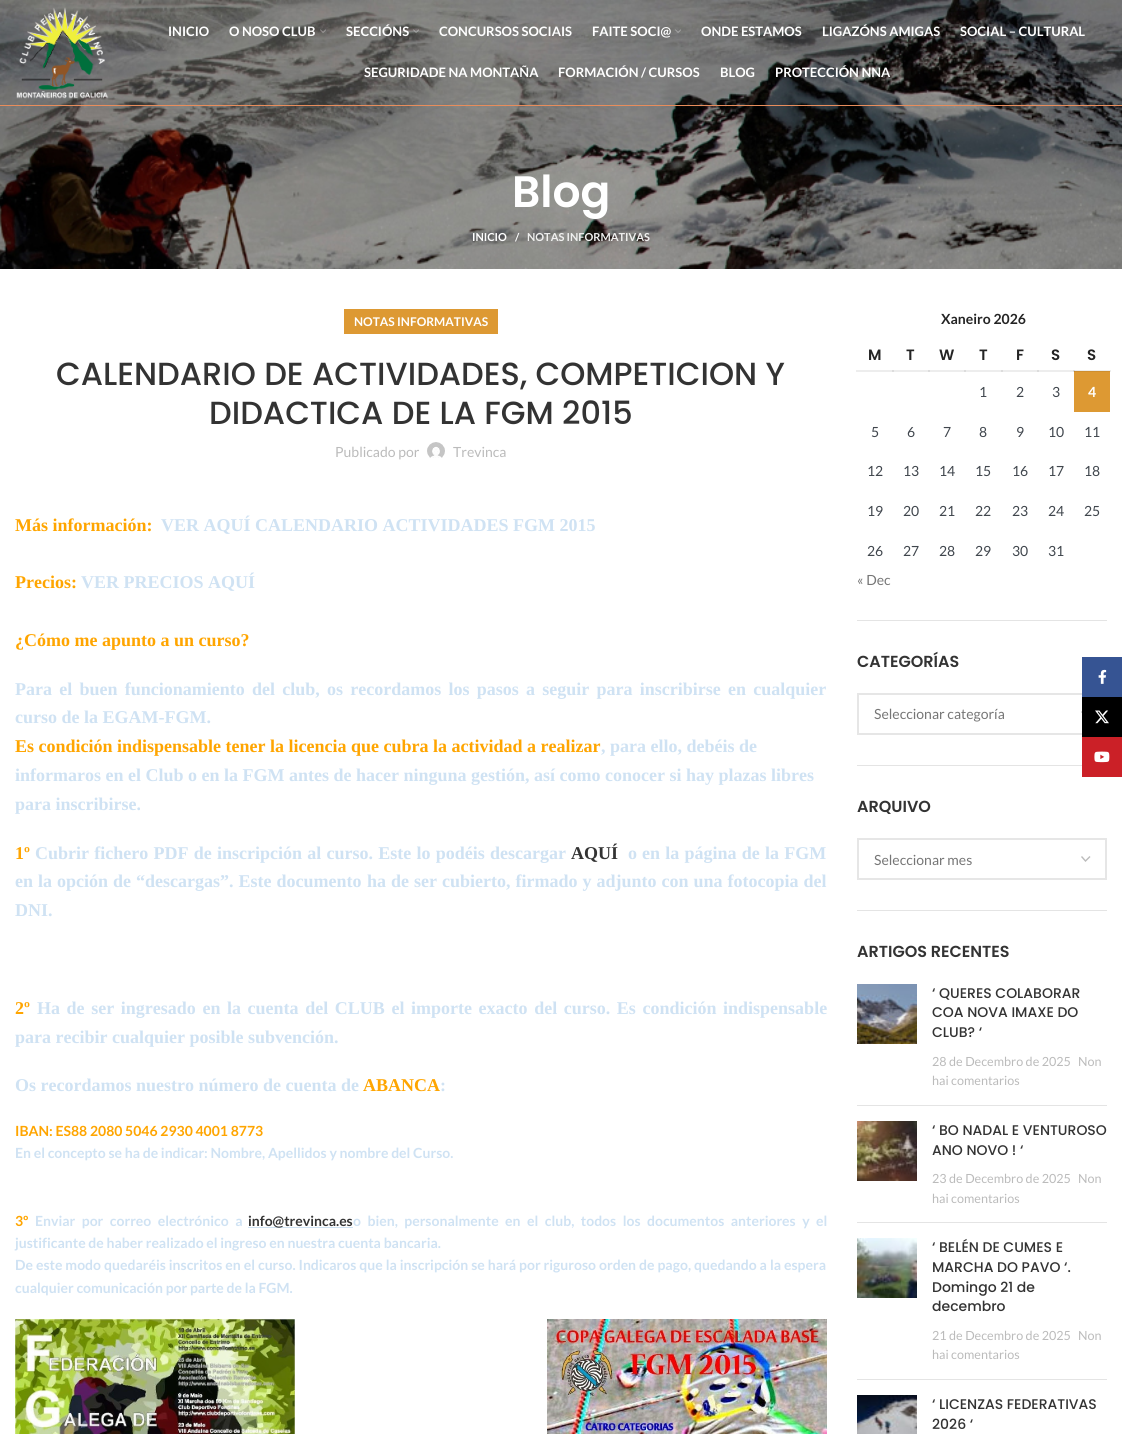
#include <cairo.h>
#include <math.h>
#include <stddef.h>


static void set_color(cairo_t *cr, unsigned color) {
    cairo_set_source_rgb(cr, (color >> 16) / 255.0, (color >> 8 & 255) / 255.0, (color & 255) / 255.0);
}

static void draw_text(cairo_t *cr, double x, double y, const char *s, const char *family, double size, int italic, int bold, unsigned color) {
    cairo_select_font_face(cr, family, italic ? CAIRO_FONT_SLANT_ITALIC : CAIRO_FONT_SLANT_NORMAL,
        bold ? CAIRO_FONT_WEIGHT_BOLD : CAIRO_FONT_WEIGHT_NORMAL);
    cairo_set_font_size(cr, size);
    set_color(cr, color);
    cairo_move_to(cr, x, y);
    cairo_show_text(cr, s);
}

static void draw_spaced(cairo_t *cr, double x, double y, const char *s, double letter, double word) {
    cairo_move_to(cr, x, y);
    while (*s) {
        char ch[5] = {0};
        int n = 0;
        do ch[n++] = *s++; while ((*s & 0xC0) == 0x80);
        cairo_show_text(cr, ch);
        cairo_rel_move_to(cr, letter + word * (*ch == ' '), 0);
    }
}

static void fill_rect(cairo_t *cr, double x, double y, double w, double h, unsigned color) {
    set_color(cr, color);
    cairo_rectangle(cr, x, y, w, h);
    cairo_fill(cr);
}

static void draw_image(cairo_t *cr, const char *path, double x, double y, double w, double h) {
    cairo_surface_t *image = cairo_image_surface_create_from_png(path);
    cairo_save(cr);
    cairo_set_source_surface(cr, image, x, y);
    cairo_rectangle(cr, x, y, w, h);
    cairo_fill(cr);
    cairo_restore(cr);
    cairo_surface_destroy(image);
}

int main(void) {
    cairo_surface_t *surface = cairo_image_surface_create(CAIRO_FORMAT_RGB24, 1122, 1434);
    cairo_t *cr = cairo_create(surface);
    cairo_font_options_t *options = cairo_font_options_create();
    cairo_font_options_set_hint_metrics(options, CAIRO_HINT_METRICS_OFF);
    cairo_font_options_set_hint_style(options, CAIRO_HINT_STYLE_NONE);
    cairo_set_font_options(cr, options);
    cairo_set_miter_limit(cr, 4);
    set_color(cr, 0xFFFFFF);
    cairo_paint(cr);
    fill_rect(cr, 856, 370, 255, 2, 0xEDEDED);
    fill_rect(cr, 892, 370, 2, 2, 0xDCDCDC);
    fill_rect(cr, 928, 370, 2, 2, 0xDCDCDC);
    fill_rect(cr, 964, 370, 2, 2, 0xDCDCDC);
    fill_rect(cr, 1001, 370, 2, 2, 0xDCDCDC);
    fill_rect(cr, 1037, 370, 2, 2, 0xDCDCDC);
    fill_rect(cr, 1073, 370, 2, 2, 0xDCDCDC);
    draw_image(cr, "assets/img5.png", 0, 0, 1122, 269);
    fill_rect(cr, 0, 105, 1122, 1, 0xE88D5C);
    draw_image(cr, "assets/img1.png", 16, 7, 93, 92);
    draw_text(cr, 168, 36, "INICIO", "Lato", 13, 0, 1, 0xFFFFFF);
    draw_text(cr, 229, 36, "O NOSO CLUB", "Lato", 13, 0, 1, 0xFFFFFF);
    draw_image(cr, "assets/img2.png", 320, 29, 6, 4);
    draw_text(cr, 346, 36, "SECCIÓNS", "Lato", 13, 0, 1, 0xFFFFFF);
    draw_image(cr, "assets/img3.png", 413, 29, 6, 4);
    draw_text(cr, 439, 36, "CONCURSOS SOCIAIS", "Lato", 13, 0, 1, 0xFFFFFF);
    draw_text(cr, 592, 36, "FAITE SOCI@", "Lato", 13, 0, 1, 0xFFFFFF);
    draw_image(cr, "assets/img4.png", 675, 29, 6, 4);
    draw_text(cr, 701, 36, "ONDE ESTAMOS", "Lato", 13, 0, 1, 0xFFFFFF);
    draw_text(cr, 822, 36, "LIGAZÓNS AMIGAS", "Lato", 13, 0, 1, 0xFFFFFF);
    draw_text(cr, 960, 36, "SOCIAL – CULTURAL", "Lato", 13, 0, 1, 0xFFFFFF);
    draw_text(cr, 364, 77, "SEGURIDADE NA MONTAÑA", "Lato", 13, 0, 1, 0xFFFFFF);
    draw_text(cr, 558, 77, "FORMACIÓN / CURSOS", "Lato", 13, 0, 1, 0xFFFFFF);
    draw_text(cr, 720, 77, "BLOG", "Lato", 13, 0, 1, 0xFFFFFF);
    draw_text(cr, 775, 77, "PROTECCIÓN NNA", "Lato", 13, 0, 1, 0xFFFFFF);
    draw_text(cr, 512, 207, "Blog", "Poppins SemiBold", 44, 0, 0, 0xFFFFFF);
    draw_text(cr, 472, 241, "INICIO", "Lato", 11, 0, 1, 0xFFFFFF);
    draw_text(cr, 515, 241, "/", "Lato", 11, 0, 1, 0xFFFFFF);
    draw_text(cr, 527, 241, "NOTAS INFORMATIVAS", "Lato", 11, 0, 1, 0xF0F0EF);
    fill_rect(cr, 344, 309, 154, 25, 0xDD9933);
    draw_text(cr, 354, 326, "NOTAS INFORMATIVAS", "Lato", 12, 0, 1, 0xFFFFFF);
    draw_text(cr, 56, 385, "CALENDARIO DE ACTIVIDADES, COMPETICION Y", "Poppins Medium", 32, 0, 0, 0x333333);
    draw_text(cr, 209, 424, "DIDACTICA DE LA FGM 2015", "Poppins Medium", 32, 0, 0, 0x333333);
    draw_text(cr, 335, 457, "Publicado por", "Lato", 14, 0, 0, 0xBBBBBB);
    draw_image(cr, "assets/img6.png", 427, 442, 18, 16);
    draw_text(cr, 453, 457, "Trevinca", "Lato", 14, 0, 0, 0xBBBBBB);
    draw_text(cr, 15, 531, "Más información:", "Liberation Serif", 18, 0, 1, 0xFFA500);
    draw_text(cr, 161, 531, "VER AQUÍ CALENDARIO ACTIVIDADES FGM 2015", "Liberation Serif", 18, 0, 1, 0xCFE2F3);
    draw_text(cr, 15, 588, "Precios:", "Liberation Serif", 18, 0, 1, 0xFFA500);
    draw_text(cr, 81, 588, "VER PRECIOS AQUÍ", "Liberation Serif", 18, 0, 1, 0xCFE2F3);
    draw_text(cr, 15, 646, "¿Cómo me apunto a un curso?", "Liberation Serif", 18, 0, 1, 0xFFA500);
    set_color(cr, 0xCFE2F3);
    draw_spaced(cr, 15, 695, "Para el buen funcionamiento del club, os recordamos los pasos a seguir para inscribirse en cualquier", 0, 2.75);
    draw_text(cr, 15, 723, "curso de la EGAM-FGM.", "Liberation Serif", 18, 0, 1, 0xCFE2F3);
    draw_text(cr, 15, 752, "Es condición indispensable tener la licencia que cubra la actividad a realizar", "Liberation Serif", 18, 0, 1, 0xFFA500);
    draw_text(cr, 601, 752, ", para ello, debéis de", "Liberation Serif", 18, 0, 1, 0xCFE2F3);
    draw_text(cr, 15, 781, "informaros en el Club o en la FGM antes de hacer ninguna gestión, así como conocer si hay plazas libres", "Liberation Serif", 18, 0, 1, 0xCFE2F3);
    draw_text(cr, 15, 810, "para inscribirse.", "Liberation Serif", 18, 0, 1, 0xCFE2F3);
    draw_text(cr, 15, 859, "1º", "Liberation Serif", 18, 0, 1, 0xFFA500);
    set_color(cr, 0xCFE2F3);
    draw_spaced(cr, 35, 859, "Cubrir fichero PDF de inscripción al curso. Este lo podéis descargar", 0, 0.75);
    draw_text(cr, 571, 859, "AQUÍ", "Liberation Serif", 18, 0, 1, 0x333333);
    draw_text(cr, 628, 859, "o", "Liberation Serif", 18, 0, 1, 0xCFE2F3);
    draw_spaced(cr, 642, 859, "en la página de la FGM", 0, 0.75);
    draw_spaced(cr, 15, 887, "en la opción de “descargas”. Este documento", 0, 0.5);
    draw_spaced(cr, 367, 887, "ha de ser cubierto, firmado y adjunto con una fotocopia del", 0, 0.5);
    draw_text(cr, 15, 916, "DNI.", "Liberation Serif", 18, 0, 1, 0xCFE2F3);
    draw_text(cr, 15, 1014, "2º", "Liberation Serif", 18, 0, 1, 0xFFA500);
    set_color(cr, 0xCFE2F3);
    draw_spaced(cr, 37, 1014, "Ha de ser ingresado en la cuenta del CLUB el importe exacto del curso. Es condición indispensable", 0, 2.1);
    draw_text(cr, 15, 1043, "para recibir cualquier posible subvención.", "Liberation Serif", 18, 0, 1, 0xCFE2F3);
    draw_text(cr, 15, 1091, "Os recordamos nuestro número de cuenta de", "Liberation Serif", 18, 0, 1, 0xCFE2F3);
    draw_text(cr, 363, 1091, "ABANCA", "Liberation Serif", 18, 0, 1, 0xFFA500);
    draw_text(cr, 440, 1091, ":", "Liberation Serif", 18, 0, 1, 0xCFE2F3);
    draw_text(cr, 15, 1136, "IBAN: ES88 2080 5046 2930 4001 8773", "Lato", 14, 0, 1, 0xFFA500);
    draw_text(cr, 15, 1158, "En el concepto se ha de indicar: Nombre, Apellidos y nombre del Curso.", "Lato", 14, 0, 1, 0xCFE2F3);
    draw_text(cr, 15, 1226, "3º", "Lato", 14, 0, 1, 0xFFA500);
    set_color(cr, 0xCFE2F3);
    draw_spaced(cr, 35, 1226, "Enviar por correo electrónico a", 0, 3.75);
    fill_rect(cr, 248, 1227, 105, 1, 0xCFE2F3);
    draw_text(cr, 248, 1226, "info@trevinca.es", "Lato", 14, 0, 1, 0x333333);
    set_color(cr, 0xCFE2F3);
    draw_spaced(cr, 353, 1226, "o bien, personalmente en el club, todos los documentos anteriores y el", 0, 3.75);
    draw_text(cr, 15, 1248, "justificante de haber realizado el ingreso en nuestra cuenta bancaria.", "Lato", 14, 0, 1, 0xCFE2F3);
    draw_spaced(cr, 15, 1270, "De este modo quedaréis inscritos en el curso. Indicaros que la inscripción se hará por riguroso orden de pago, quedando a la espera", 0, 0.25);
    draw_text(cr, 15, 1293, "cualquier comunicación por parte de la FGM.", "Lato", 14, 0, 1, 0xCFE2F3);
    draw_image(cr, "assets/img7.png", 15, 1319, 280, 115);
    draw_image(cr, "assets/img8.png", 547, 1319, 280, 115);
    fill_rect(cr, 857, 620, 250, 1, 0xE4E4E4);
    draw_text(cr, 941, 324, "Xaneiro 2026", "Lato", 14, 0, 1, 0x242424);
    draw_text(cr, 868, 360, "M", "Poppins SemiBold", 15, 0, 0, 0x242424);
    draw_text(cr, 906, 360, "T", "Poppins SemiBold", 15, 0, 0, 0x242424);
    draw_text(cr, 939, 360, "W", "Poppins SemiBold", 15, 0, 0, 0x242424);
    draw_text(cr, 979, 360, "T", "Poppins SemiBold", 15, 0, 0, 0x242424);
    draw_text(cr, 1016, 360, "F", "Poppins SemiBold", 15, 0, 0, 0x242424);
    draw_text(cr, 1051, 360, "S", "Poppins SemiBold", 15, 0, 0, 0x242424);
    draw_text(cr, 1087, 360, "S", "Poppins SemiBold", 15, 0, 0, 0x242424);
    draw_text(cr, 979, 397, "1", "Lato", 14, 0, 0, 0x40464D);
    draw_text(cr, 1016, 397, "2", "Lato", 14, 0, 0, 0x40464D);
    draw_text(cr, 1052, 397, "3", "Lato", 14, 0, 0, 0x40464D);
    fill_rect(cr, 1074, 372, 36, 40, 0xDD9933);
    fill_rect(cr, 1074, 371, 36, 1, 0xCE8E2F);
    fill_rect(cr, 1074, 371, 1, 1, 0xC0842C);
    draw_text(cr, 1088, 397, "4", "Lato", 14, 0, 1, 0xFFFFFF);
    draw_text(cr, 871, 437, "5", "Lato", 14, 0, 0, 0x40464D);
    draw_text(cr, 907, 437, "6", "Lato", 14, 0, 0, 0x40464D);
    draw_text(cr, 943, 437, "7", "Lato", 14, 0, 0, 0x40464D);
    draw_text(cr, 979, 437, "8", "Lato", 14, 0, 0, 0x40464D);
    draw_text(cr, 1016, 437, "9", "Lato", 14, 0, 0, 0x40464D);
    draw_text(cr, 1048, 437, "10", "Lato", 14, 0, 0, 0x40464D);
    draw_text(cr, 1084, 437, "11", "Lato", 14, 0, 0, 0x40464D);
    draw_text(cr, 867, 476, "12", "Lato", 14, 0, 0, 0x40464D);
    draw_text(cr, 903, 476, "13", "Lato", 14, 0, 0, 0x40464D);
    draw_text(cr, 939, 476, "14", "Lato", 14, 0, 0, 0x40464D);
    draw_text(cr, 975, 476, "15", "Lato", 14, 0, 0, 0x40464D);
    draw_text(cr, 1012, 476, "16", "Lato", 14, 0, 0, 0x40464D);
    draw_text(cr, 1048, 476, "17", "Lato", 14, 0, 0, 0x40464D);
    draw_text(cr, 1084, 476, "18", "Lato", 14, 0, 0, 0x40464D);
    draw_text(cr, 867, 516, "19", "Lato", 14, 0, 0, 0x40464D);
    draw_text(cr, 903, 516, "20", "Lato", 14, 0, 0, 0x40464D);
    draw_text(cr, 939, 516, "21", "Lato", 14, 0, 0, 0x40464D);
    draw_text(cr, 975, 516, "22", "Lato", 14, 0, 0, 0x40464D);
    draw_text(cr, 1012, 516, "23", "Lato", 14, 0, 0, 0x40464D);
    draw_text(cr, 1048, 516, "24", "Lato", 14, 0, 0, 0x40464D);
    draw_text(cr, 1084, 516, "25", "Lato", 14, 0, 0, 0x40464D);
    draw_text(cr, 867, 556, "26", "Lato", 14, 0, 0, 0x40464D);
    draw_text(cr, 903, 556, "27", "Lato", 14, 0, 0, 0x40464D);
    draw_text(cr, 939, 556, "28", "Lato", 14, 0, 0, 0x40464D);
    draw_text(cr, 975, 556, "29", "Lato", 14, 0, 0, 0x40464D);
    draw_text(cr, 1012, 556, "30", "Lato", 14, 0, 0, 0x40464D);
    draw_text(cr, 1048, 556, "31", "Lato", 14, 0, 0, 0x40464D);
    draw_text(cr, 857, 585, "« Dec", "Lato", 14, 0, 0, 0x767676);
    fill_rect(cr, 857, 765, 225, 1, 0xE4E4E4);
    draw_text(cr, 857, 667, "CATEGORÍAS", "Poppins SemiBold", 16, 0, 0, 0x333333);
    cairo_new_path(cr);
    cairo_move_to(cr, 1081.5, 711.5);
    cairo_line_to(cr, 1085.5, 716);
    cairo_line_to(cr, 1090, 711.5);
    set_color(cr, 0xBBBBBB);
    cairo_set_line_width(cr, 1.4);
    cairo_stroke(cr);
    cairo_rectangle(cr, 858, 694, 248, 40);
    set_color(cr, 0xE6E6E6);
    cairo_set_line_width(cr, 2);
    cairo_stroke(cr);
    draw_text(cr, 874, 719, "Seleccionar categoría", "Lato", 14, 0, 0, 0x767676);
    fill_rect(cr, 857, 910, 250, 1, 0xE4E4E4);
    draw_text(cr, 857, 812, "ARQUIVO", "Poppins SemiBold", 16, 0, 0, 0x333333);
    cairo_new_path(cr);
    cairo_move_to(cr, 1081.5, 856.5);
    cairo_line_to(cr, 1085.5, 861);
    cairo_line_to(cr, 1090, 856.5);
    set_color(cr, 0xBBBBBB);
    cairo_set_line_width(cr, 1.4);
    cairo_stroke(cr);
    cairo_rectangle(cr, 858, 839, 248, 40);
    set_color(cr, 0xE6E6E6);
    cairo_set_line_width(cr, 2);
    cairo_stroke(cr);
    draw_text(cr, 874, 865, "Seleccionar mes", "Lato", 14, 0, 0, 0x767676);
    draw_text(cr, 857, 957, "ARTIGOS RECENTES", "Poppins SemiBold", 16, 0, 0, 0x333333);
    fill_rect(cr, 857, 1105, 250, 1, 0xE4E4E4);
    draw_image(cr, "assets/img9.png", 857, 984, 60, 60);
    draw_text(cr, 932, 998, "‘ QUERES COLABORAR", "Poppins Medium", 14, 0, 0, 0x333333);
    draw_text(cr, 932, 1017, "COA NOVA IMAXE DO", "Poppins Medium", 14, 0, 0, 0x333333);
    draw_text(cr, 932, 1037, "CLUB? ‘", "Poppins Medium", 14, 0, 0, 0x333333);
    draw_text(cr, 932, 1066, "28 de Decembro de 2025", "Lato", 12.6, 0, 0, 0xBBBBBB);
    draw_text(cr, 1078, 1066, "Non", "Lato", 12.6, 0, 0, 0xBBBBBB);
    draw_text(cr, 932, 1085, "hai comentarios", "Lato", 12.6, 0, 0, 0xBBBBBB);
    fill_rect(cr, 857, 1222, 250, 1, 0xE4E4E4);
    draw_image(cr, "assets/img10.png", 857, 1121, 60, 60);
    draw_text(cr, 932, 1135, "‘ BO NADAL E VENTUROSO", "Poppins Medium", 14, 0, 0, 0x333333);
    draw_text(cr, 932, 1155, "ANO NOVO ! ‘", "Poppins Medium", 14, 0, 0, 0x333333);
    draw_text(cr, 932, 1183, "23 de Decembro de 2025", "Lato", 12.6, 0, 0, 0xBBBBBB);
    draw_text(cr, 1078, 1183, "Non", "Lato", 12.6, 0, 0, 0xBBBBBB);
    draw_text(cr, 932, 1203, "hai comentarios", "Lato", 12.6, 0, 0, 0xBBBBBB);
    fill_rect(cr, 857, 1379, 250, 1, 0xE4E4E4);
    draw_image(cr, "assets/img11.png", 857, 1238, 60, 60);
    draw_text(cr, 932, 1252, "‘ BELÉN DE CUMES E", "Poppins Medium", 14, 0, 0, 0x333333);
    draw_text(cr, 932, 1272, "MARCHA DO PAVO ‘.", "Poppins Medium", 14, 0, 0, 0x333333);
    draw_text(cr, 932, 1292, "Domingo 21 de", "Poppins Medium", 14, 0, 0, 0x333333);
    draw_text(cr, 932, 1311, "decembro", "Poppins Medium", 14, 0, 0, 0x333333);
    draw_text(cr, 932, 1340, "21 de Decembro de 2025", "Lato", 12.6, 0, 0, 0xBBBBBB);
    draw_text(cr, 1078, 1340, "Non", "Lato", 12.6, 0, 0, 0xBBBBBB);
    draw_text(cr, 932, 1359, "hai comentarios", "Lato", 12.6, 0, 0, 0xBBBBBB);
    draw_image(cr, "assets/img12.png", 857, 1395, 60, 39);
    draw_text(cr, 932, 1409, "‘ LICENZAS FEDERATIVAS", "Poppins Medium", 14, 0, 0, 0x333333);
    draw_text(cr, 932, 1429, "2026 ‘", "Poppins Medium", 14, 0, 0, 0x333333);
    fill_rect(cr, 1082, 657, 40, 40, 0x365493);
    draw_image(cr, "assets/img13.png", 1098, 669, 9, 15);
    fill_rect(cr, 1082, 697, 40, 40, 0x000000);
    draw_image(cr, "assets/img14.png", 1095, 710, 14, 14);
    fill_rect(cr, 1082, 737, 40, 40, 0xCB2027);
    draw_image(cr, "assets/img15.png", 1094, 751, 16, 12);
    cairo_surface_write_to_png(surface, "output.png");
    cairo_font_options_destroy(options);
    cairo_destroy(cr);
    cairo_surface_destroy(surface);
    return 0;
}
